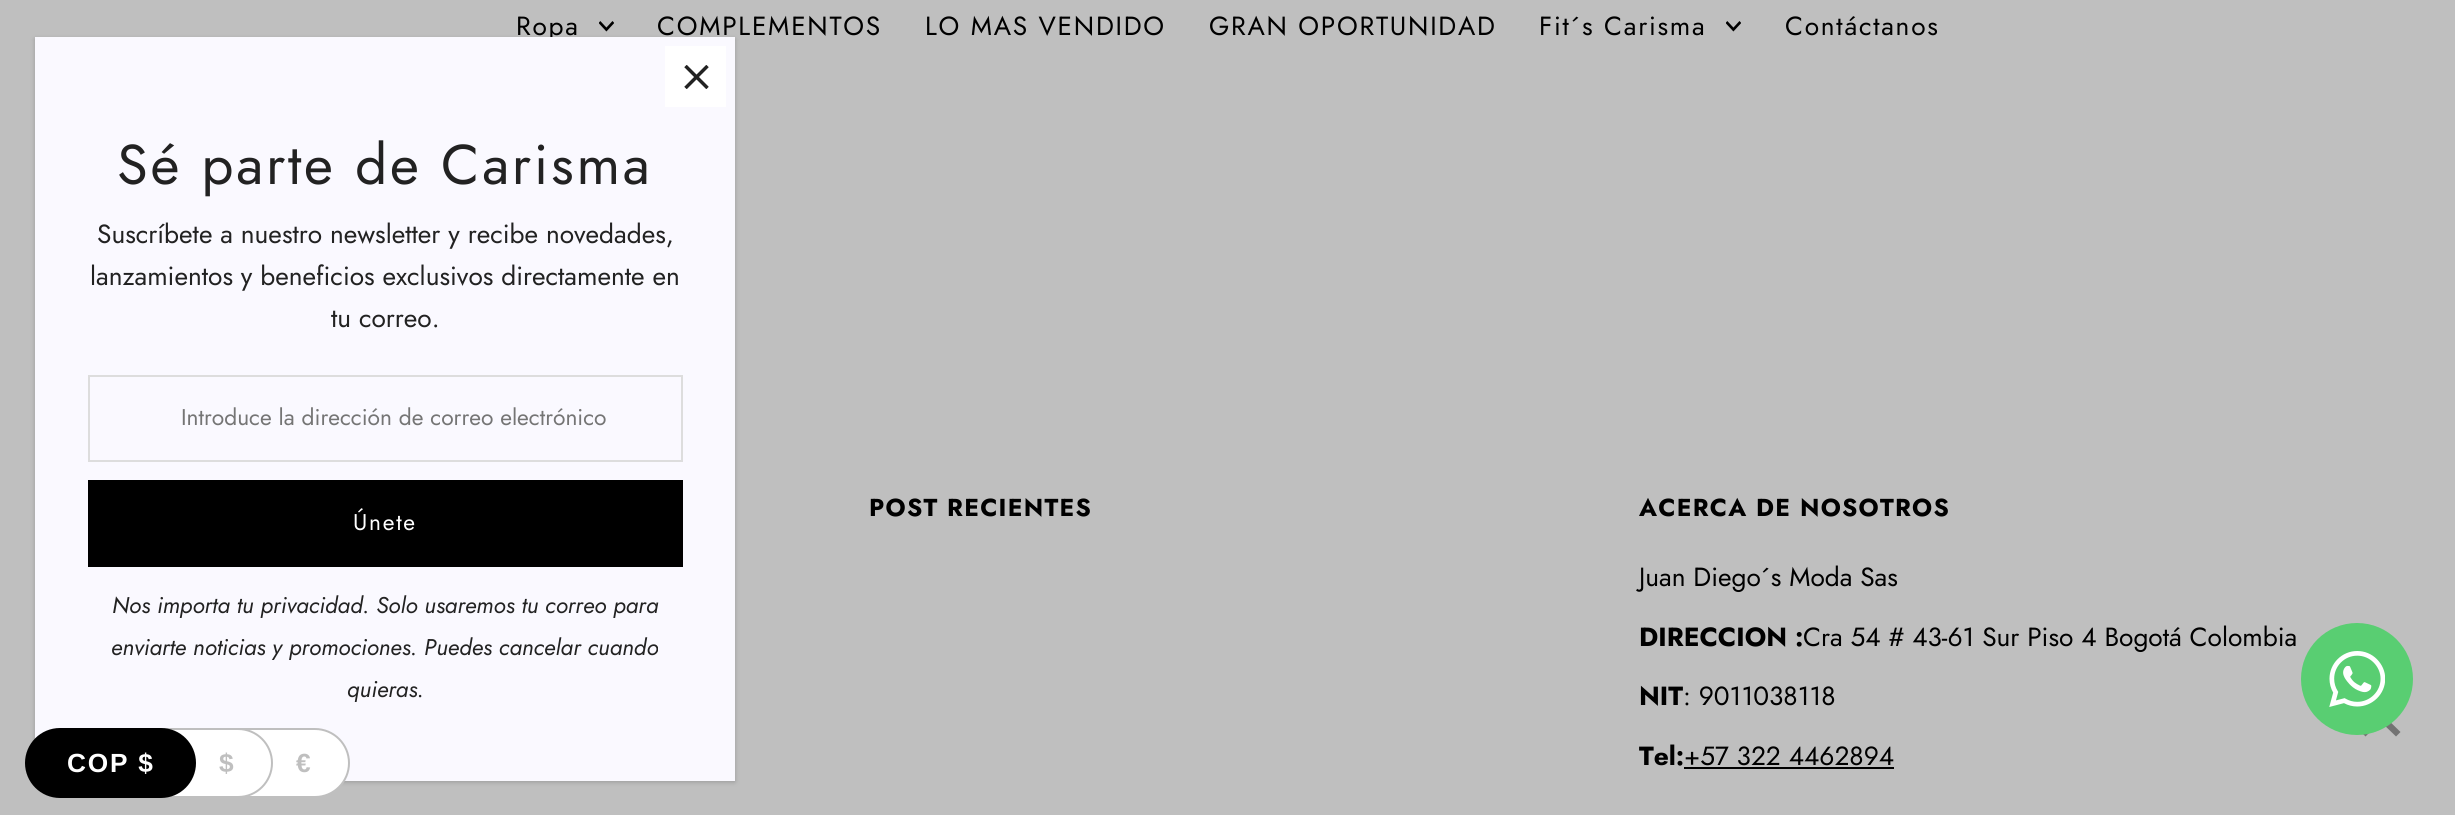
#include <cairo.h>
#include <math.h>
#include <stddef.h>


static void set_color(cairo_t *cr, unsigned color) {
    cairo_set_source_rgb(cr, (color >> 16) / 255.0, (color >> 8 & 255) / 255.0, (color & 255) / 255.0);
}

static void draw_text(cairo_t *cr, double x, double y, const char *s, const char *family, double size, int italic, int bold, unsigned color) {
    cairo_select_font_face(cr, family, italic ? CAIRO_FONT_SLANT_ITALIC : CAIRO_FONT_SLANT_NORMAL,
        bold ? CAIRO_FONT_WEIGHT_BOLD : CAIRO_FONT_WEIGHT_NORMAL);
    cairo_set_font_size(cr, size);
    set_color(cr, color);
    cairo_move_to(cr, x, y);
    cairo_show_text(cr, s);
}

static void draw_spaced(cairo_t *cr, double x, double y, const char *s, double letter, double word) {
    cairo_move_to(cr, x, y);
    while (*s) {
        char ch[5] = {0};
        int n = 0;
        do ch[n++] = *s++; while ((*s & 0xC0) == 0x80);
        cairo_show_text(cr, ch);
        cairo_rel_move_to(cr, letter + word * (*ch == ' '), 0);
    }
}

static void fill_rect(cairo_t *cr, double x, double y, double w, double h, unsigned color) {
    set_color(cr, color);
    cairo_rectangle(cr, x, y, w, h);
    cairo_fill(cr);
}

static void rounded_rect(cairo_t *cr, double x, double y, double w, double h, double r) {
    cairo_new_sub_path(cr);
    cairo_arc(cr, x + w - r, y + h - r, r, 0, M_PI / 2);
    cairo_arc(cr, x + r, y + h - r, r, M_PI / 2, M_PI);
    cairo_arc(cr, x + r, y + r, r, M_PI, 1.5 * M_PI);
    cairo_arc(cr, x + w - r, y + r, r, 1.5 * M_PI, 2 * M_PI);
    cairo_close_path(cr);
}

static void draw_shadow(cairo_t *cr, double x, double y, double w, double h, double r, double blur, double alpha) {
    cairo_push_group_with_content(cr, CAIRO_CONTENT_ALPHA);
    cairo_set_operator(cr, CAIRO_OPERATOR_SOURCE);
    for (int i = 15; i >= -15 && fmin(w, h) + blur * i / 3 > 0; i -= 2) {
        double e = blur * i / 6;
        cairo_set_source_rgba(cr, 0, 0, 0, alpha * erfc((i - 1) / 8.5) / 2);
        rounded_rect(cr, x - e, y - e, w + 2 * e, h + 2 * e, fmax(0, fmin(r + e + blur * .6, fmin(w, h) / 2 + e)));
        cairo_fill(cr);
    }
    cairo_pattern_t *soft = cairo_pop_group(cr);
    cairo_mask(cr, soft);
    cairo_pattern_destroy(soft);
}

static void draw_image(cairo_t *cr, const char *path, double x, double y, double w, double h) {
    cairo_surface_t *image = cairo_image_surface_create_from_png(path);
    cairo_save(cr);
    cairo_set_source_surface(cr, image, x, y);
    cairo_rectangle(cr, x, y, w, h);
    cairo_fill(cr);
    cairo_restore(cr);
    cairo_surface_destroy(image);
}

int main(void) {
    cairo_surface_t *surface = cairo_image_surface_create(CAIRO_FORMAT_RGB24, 2455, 815);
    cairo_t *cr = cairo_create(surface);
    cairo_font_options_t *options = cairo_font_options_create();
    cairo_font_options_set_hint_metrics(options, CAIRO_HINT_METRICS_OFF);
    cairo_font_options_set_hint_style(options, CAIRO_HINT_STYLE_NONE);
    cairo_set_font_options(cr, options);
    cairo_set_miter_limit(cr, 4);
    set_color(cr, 0xBFBFBF);
    cairo_paint(cr);
    draw_image(cr, "assets/img2.png", 599, 21, 15, 11);
    set_color(cr, 0x000000);
    draw_shadow(cr, 35, 39, 700, 743, 0, 2.5, 0.2);
    cairo_select_font_face(cr, "Jost", CAIRO_FONT_SLANT_NORMAL, CAIRO_FONT_WEIGHT_NORMAL);
    cairo_set_font_size(cr, 26.25);
    set_color(cr, 0x000000);
    draw_spaced(cr, 516, 35, "Ropa", 1.75, 0);
    fill_rect(cr, 35, 37, 700, 744, 0xFAF9FF);
    fill_rect(cr, 665, 46, 61, 61, 0xFFFFFF);
    draw_image(cr, "assets/img1.png", 684, 65, 25, 24);
    cairo_set_font_size(cr, 56);
    set_color(cr, 0x222222);
    draw_spaced(cr, 117, 184, "Sé parte de Carisma", 2.75, 0);
    draw_text(cr, 97, 243, "Suscríbete a nuestro newsletter y recibe novedades,", "Jost", 26.25, 0, 0, 0x222222);
    draw_text(cr, 90, 285, "lanzamientos y beneficios exclusivos directamente en", "Jost", 26.25, 0, 0, 0x222222);
    draw_text(cr, 331, 327, "tu correo.", "Jost", 26.25, 0, 0, 0x222222);
    cairo_rectangle(cr, 89, 376, 593, 85);
    set_color(cr, 0xDDDDDD);
    cairo_stroke(cr);
    draw_text(cr, 181, 425, "Introduce la dirección de correo electrónico", "Jost", 22.75, 0, 0, 0x757575);
    fill_rect(cr, 88, 480, 595, 87, 0x000000);
    set_color(cr, 0xFFFFFF);
    draw_spaced(cr, 353, 530, "Únete", 1.75, 0);
    draw_text(cr, 112, 613, "Nos importa tu privacidad. Solo usaremos tu correo para", "Jost", 22.75, 1, 0, 0x222222);
    draw_text(cr, 111, 655, "enviarte noticias y promociones. Puedes cancelar cuando", "Jost", 22.75, 1, 0, 0x222222);
    draw_text(cr, 347, 697, "quieras.", "Jost", 22.75, 1, 0, 0x222222);
    cairo_select_font_face(cr, "Jost", CAIRO_FONT_SLANT_NORMAL, CAIRO_FONT_WEIGHT_NORMAL);
    cairo_set_font_size(cr, 26.25);
    set_color(cr, 0x000000);
    draw_spaced(cr, 657, 35, "COMPLEMENTOS", 1.75, 0);
    draw_spaced(cr, 925, 35, "LO MAS VENDIDO", 1.75, 0);
    draw_spaced(cr, 1209, 35, "GRAN OPORTUNIDAD", 1.75, 0);
    draw_spaced(cr, 1539, 35, "Fit´s Carisma", 1.75, 0);
    draw_image(cr, "assets/img2.png", 1726, 21, 15, 11);
    draw_spaced(cr, 1785, 35, "Contáctanos", 1.75, 0);
    cairo_select_font_face(cr, "Jost", CAIRO_FONT_SLANT_NORMAL, CAIRO_FONT_WEIGHT_BOLD);
    cairo_set_font_size(cr, 24.5);
    draw_spaced(cr, 869, 516, "POST RECIENTES", 1.25, 0);
    draw_spaced(cr, 1639, 516, "ACERCA DE NOSOTROS", 1.25, 0);
    draw_text(cr, 1639, 586, "Juan Diego´s Moda Sas", "Jost", 26.25, 0, 0, 0x000000);
    draw_text(cr, 1639, 646, "DIRECCION :", "Jost", 26.25, 0, 1, 0x000000);
    draw_text(cr, 1803, 646, "Cra 54 # 43-61 Sur Piso 4 Bogotá Colombia", "Jost", 26.25, 0, 0, 0x000000);
    draw_text(cr, 1639, 705, "NIT", "Jost", 26.25, 0, 1, 0x000000);
    draw_text(cr, 1683, 705, ": 9011038118", "Jost", 26.25, 0, 0, 0x000000);
    draw_text(cr, 1639, 765, "Tel:", "Jost", 26.25, 0, 1, 0x000000);
    draw_text(cr, 1684, 765, "+57 322 4462894", "Jost", 26.25, 0, 0, 0x000000);
    fill_rect(cr, 1684, 767, 210, 2, 0x000000);
    set_color(cr, 0x737373);
    cairo_new_path(cr);
    cairo_move_to(cr, 2380.5, 712.5);
    cairo_line_to(cr, 2361, 732);
    cairo_line_to(cr, 2365.5, 736.5);
    cairo_line_to(cr, 2380.5, 721.5);
    cairo_line_to(cr, 2396, 736.5);
    cairo_line_to(cr, 2400.5, 732);
    cairo_close_path(cr);
    cairo_fill(cr);
    set_color(cr, 0x59CE72);
    cairo_arc(cr, 2357, 679, 56, 0, 2 * M_PI);
    cairo_fill(cr);
    draw_image(cr, "assets/img3.png", 2329, 651, 56, 56);
    set_color(cr, 0xFFFFFF);
    rounded_rect(cr, 194, 729, 155, 68, 34);
    cairo_fill_preserve(cr);
    set_color(cr, 0xBFBFBF);
    cairo_stroke(cr);
    set_color(cr, 0xFFFFFF);
    rounded_rect(cr, 117, 729, 155, 68, 34);
    cairo_fill_preserve(cr);
    set_color(cr, 0xBFBFBF);
    cairo_stroke(cr);
    set_color(cr, 0x000000);
    rounded_rect(cr, 26, 729, 169, 68, 34);
    cairo_fill_preserve(cr);
    cairo_stroke(cr);
    cairo_select_font_face(cr, "Liberation Sans", CAIRO_FONT_SLANT_NORMAL, CAIRO_FONT_WEIGHT_BOLD);
    set_color(cr, 0xFFFFFF);
    draw_spaced(cr, 67, 772, "COP $", 1.75, 0);
    set_color(cr, 0xBFBFBF);
    draw_spaced(cr, 219, 772, "$", 1.75, 0);
    draw_spaced(cr, 296, 772, "€", 1.75, 0);
    cairo_surface_write_to_png(surface, "output.png");
    cairo_font_options_destroy(options);
    cairo_destroy(cr);
    cairo_surface_destroy(surface);
    return 0;
}
